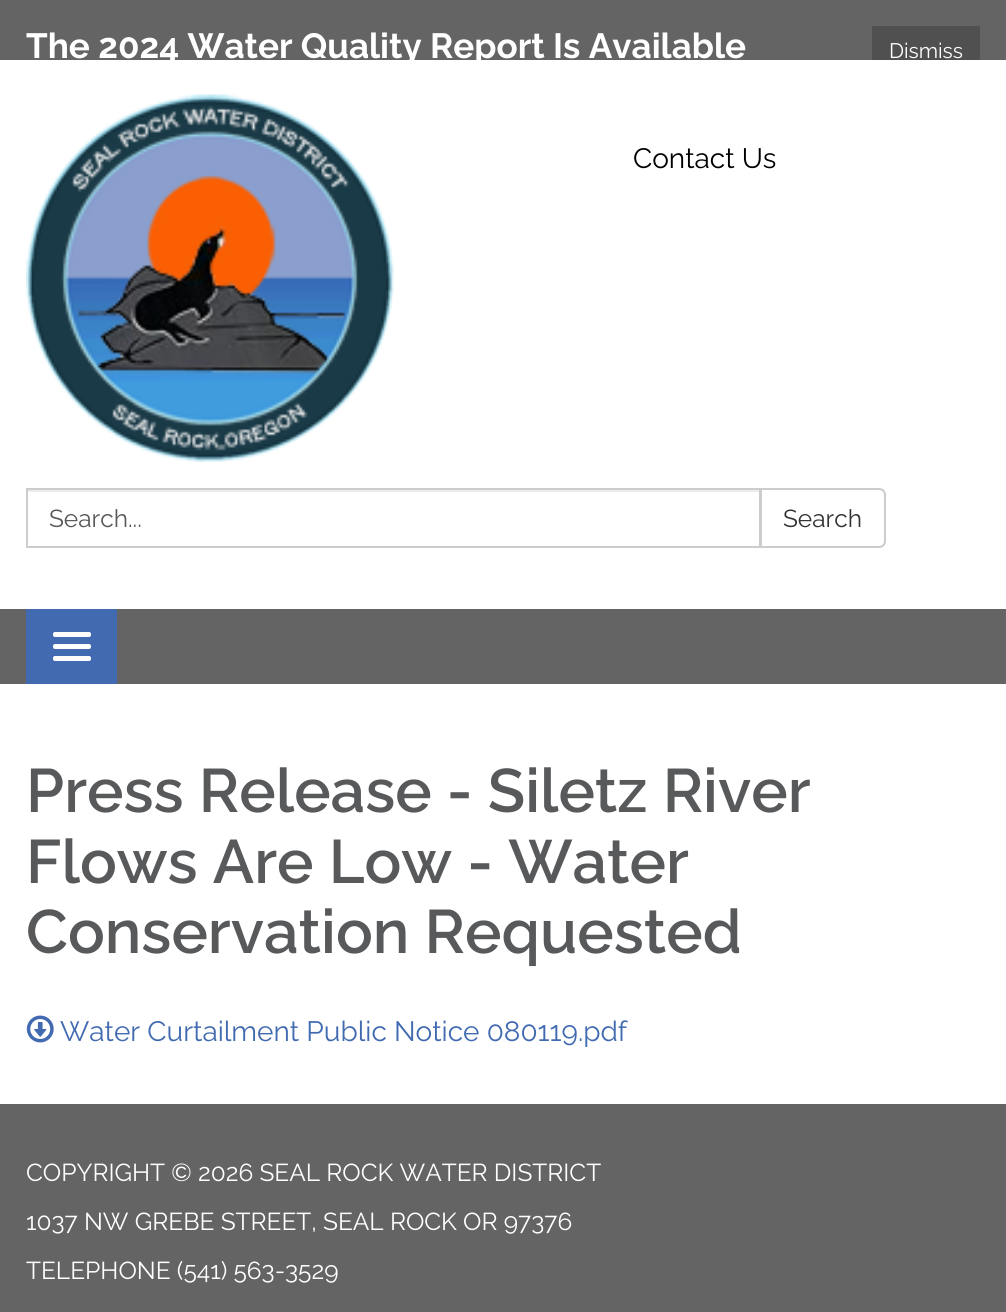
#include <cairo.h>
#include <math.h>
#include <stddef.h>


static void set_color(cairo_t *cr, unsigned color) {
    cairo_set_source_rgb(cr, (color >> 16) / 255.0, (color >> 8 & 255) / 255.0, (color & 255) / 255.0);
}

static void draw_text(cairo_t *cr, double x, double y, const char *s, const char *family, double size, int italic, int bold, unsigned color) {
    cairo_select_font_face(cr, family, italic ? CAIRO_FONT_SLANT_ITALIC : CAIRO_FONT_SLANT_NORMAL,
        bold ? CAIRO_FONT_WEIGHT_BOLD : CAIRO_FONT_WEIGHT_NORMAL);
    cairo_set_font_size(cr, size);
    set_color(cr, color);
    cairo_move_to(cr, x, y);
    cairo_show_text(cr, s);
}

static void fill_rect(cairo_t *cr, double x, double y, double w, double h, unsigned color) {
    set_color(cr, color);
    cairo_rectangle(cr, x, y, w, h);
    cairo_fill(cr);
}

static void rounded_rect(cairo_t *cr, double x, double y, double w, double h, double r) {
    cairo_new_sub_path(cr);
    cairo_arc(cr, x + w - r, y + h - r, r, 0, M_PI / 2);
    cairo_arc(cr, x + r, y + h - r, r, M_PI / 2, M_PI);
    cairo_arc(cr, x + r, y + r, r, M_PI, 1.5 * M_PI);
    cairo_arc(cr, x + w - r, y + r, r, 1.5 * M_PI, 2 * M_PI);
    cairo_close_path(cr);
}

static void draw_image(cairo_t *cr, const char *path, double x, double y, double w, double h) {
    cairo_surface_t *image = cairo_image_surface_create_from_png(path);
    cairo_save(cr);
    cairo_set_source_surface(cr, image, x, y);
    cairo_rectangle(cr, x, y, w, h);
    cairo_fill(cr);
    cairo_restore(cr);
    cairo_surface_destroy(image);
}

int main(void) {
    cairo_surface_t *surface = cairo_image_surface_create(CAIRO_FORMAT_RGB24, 1006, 1312);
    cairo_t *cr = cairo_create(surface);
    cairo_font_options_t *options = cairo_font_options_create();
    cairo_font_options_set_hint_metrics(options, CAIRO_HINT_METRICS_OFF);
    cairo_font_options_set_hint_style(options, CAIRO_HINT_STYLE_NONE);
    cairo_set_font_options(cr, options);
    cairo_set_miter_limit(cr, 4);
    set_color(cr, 0x646464);
    cairo_paint(cr);
    cairo_save(cr);
    cairo_rectangle(cr, 0, 0, 1006, 60);
    cairo_clip(cr);
    draw_text(cr, 26, 58, "The 2024 Water Quality Report Is Available", "Raleway", 35, 0, 1, 0xFFFFFF);
    cairo_restore(cr);
    fill_rect(cr, 872, 26, 108, 34, 0x505050);
    draw_text(cr, 889, 58, "Dismiss", "Raleway", 21, 0, 0, 0xFFFFFF);
    fill_rect(cr, 0, 60, 1006, 549, 0xFFFFFF);
    draw_image(cr, "assets/img1.png", 26, 94, 368, 368);
    draw_text(cr, 633, 168, "Contact Us", "Raleway", 28, 0, 0, 0x000000);
    fill_rect(cr, 28, 490, 732, 2, 0xECECEC);
    cairo_rectangle(cr, 27, 489, 733, 58);
    set_color(cr, 0xCCCCCC);
    cairo_stroke(cr);
    draw_text(cr, 49, 527, "Search...", "Raleway", 24.5, 0, 0, 0x58595B);
    set_color(cr, 0xFFFFFF);
    cairo_new_path(cr);
    cairo_move_to(cr, 761, 489);
    cairo_line_to(cr, 879, 489);
    cairo_curve_to(cr, 882.5, 489, 885, 491.5, 885, 495);
    cairo_line_to(cr, 885, 541);
    cairo_curve_to(cr, 885, 544.5, 882.5, 547, 879, 547);
    cairo_line_to(cr, 761, 547);
    cairo_close_path(cr);
    cairo_fill_preserve(cr);
    set_color(cr, 0xCCCCCC);
    cairo_stroke(cr);
    draw_text(cr, 783, 527, "Search", "Raleway", 24.5, 0, 0, 0x333333);
    fill_rect(cr, 26, 609, 91, 75, 0x416AB1);
    set_color(cr, 0xFFFFFF);
    rounded_rect(cr, 53, 632, 38, 5, 2);
    cairo_fill(cr);
    rounded_rect(cr, 53, 644, 38, 5, 2);
    cairo_fill(cr);
    rounded_rect(cr, 53, 656, 38, 5, 2);
    cairo_fill(cr);
    fill_rect(cr, 0, 684, 1006, 420, 0xFFFFFF);
    draw_text(cr, 26, 812, "Press Release - Siletz River", "Raleway SemiBold", 61.25, 0, 0, 0x58595B);
    draw_text(cr, 26, 883, "Flows Are Low - Water", "Raleway SemiBold", 61.25, 0, 0, 0x58595B);
    draw_text(cr, 26, 953, "Conservation Requested", "Raleway SemiBold", 61.25, 0, 0, 0x58595B);
    draw_image(cr, "assets/img2.png", 26, 1015, 28, 28);
    draw_text(cr, 60, 1041, "Water Curtailment Public Notice 080119.pdf", "Raleway", 28, 0, 0, 0x416AB1);
    draw_text(cr, 26, 1181, "COPYRIGHT © 2026 SEAL ROCK WATER DISTRICT", "Raleway", 24.5, 0, 0, 0xFFFFFF);
    draw_text(cr, 26, 1230, "1037 NW GREBE STREET, SEAL ROCK OR 97376", "Raleway", 24.5, 0, 0, 0xFFFFFF);
    draw_text(cr, 26, 1279, "TELEPHONE (541) 563-3529", "Raleway", 24.5, 0, 0, 0xFFFFFF);
    cairo_surface_write_to_png(surface, "output.png");
    cairo_font_options_destroy(options);
    cairo_destroy(cr);
    cairo_surface_destroy(surface);
    return 0;
}
